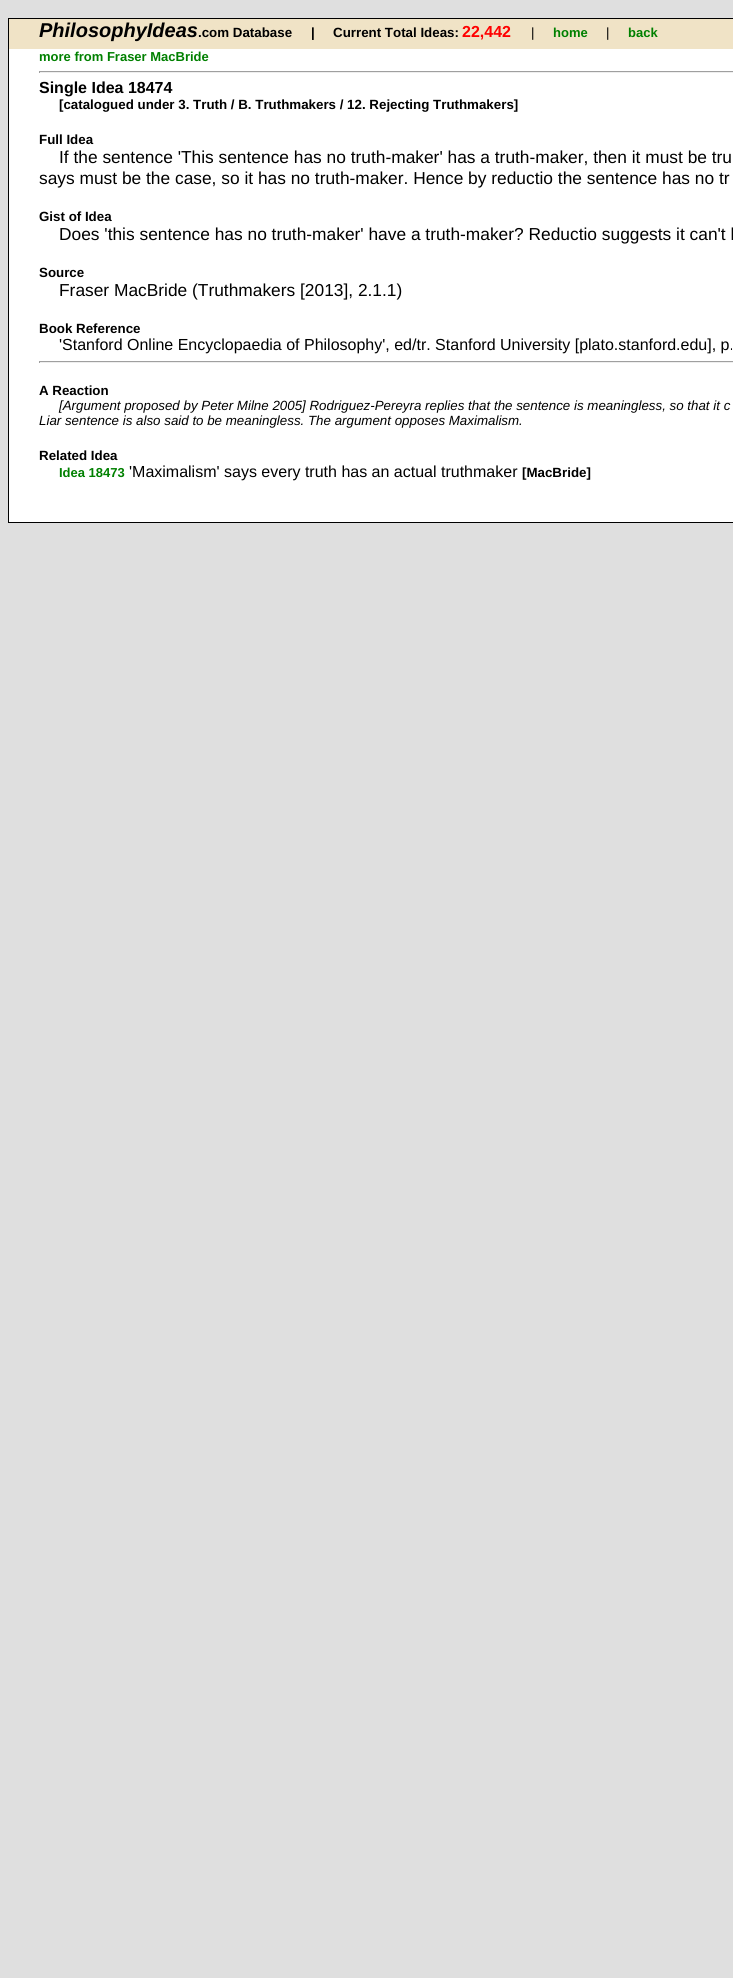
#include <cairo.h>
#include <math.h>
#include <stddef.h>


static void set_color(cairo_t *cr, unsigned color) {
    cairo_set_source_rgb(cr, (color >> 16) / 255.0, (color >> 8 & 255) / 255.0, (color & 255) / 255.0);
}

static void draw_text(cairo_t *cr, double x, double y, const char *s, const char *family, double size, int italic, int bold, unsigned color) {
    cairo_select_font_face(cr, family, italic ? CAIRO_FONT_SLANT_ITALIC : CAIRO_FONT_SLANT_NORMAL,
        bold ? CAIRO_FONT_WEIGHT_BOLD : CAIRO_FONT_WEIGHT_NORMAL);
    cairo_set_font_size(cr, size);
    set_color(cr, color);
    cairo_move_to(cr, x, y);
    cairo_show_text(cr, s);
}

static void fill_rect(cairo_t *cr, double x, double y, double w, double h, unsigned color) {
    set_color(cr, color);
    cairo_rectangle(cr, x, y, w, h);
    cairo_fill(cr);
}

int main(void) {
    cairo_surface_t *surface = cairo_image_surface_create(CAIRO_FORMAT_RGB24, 733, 1978);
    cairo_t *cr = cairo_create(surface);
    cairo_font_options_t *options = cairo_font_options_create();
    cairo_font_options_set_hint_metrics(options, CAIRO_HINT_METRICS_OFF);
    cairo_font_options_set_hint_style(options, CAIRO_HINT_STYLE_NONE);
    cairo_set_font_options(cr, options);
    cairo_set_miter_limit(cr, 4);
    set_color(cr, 0xDFDFDF);
    cairo_paint(cr);
    fill_rect(cr, 9, 49, 724, 473, 0xFFFFFF);
    cairo_rectangle(cr, 8.5, 18.5, 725, 504);
    set_color(cr, 0x000000);
    cairo_set_line_width(cr, 1);
    cairo_stroke(cr);
    fill_rect(cr, 9, 19, 724, 30, 0xF0E3C6);
    draw_text(cr, 39, 37, "PhilosophyIdeas", "Liberation Sans", 20, 1, 1, 0x000000);
    draw_text(cr, 198, 37, ".com Database", "Liberation Sans", 13.33, 0, 1, 0x000000);
    draw_text(cr, 311, 37, "|", "Liberation Sans", 13.33, 0, 1, 0x000000);
    draw_text(cr, 333, 37, "Current Total Ideas:", "Liberation Sans", 13.33, 0, 1, 0x000000);
    draw_text(cr, 462, 37, "22,442", "Liberation Sans", 16, 0, 1, 0xFF0000);
    draw_text(cr, 531, 37, "|", "Liberation Sans", 13.33, 0, 0, 0x000000);
    draw_text(cr, 553, 37, "home", "Liberation Sans", 13, 0, 1, 0x008000);
    draw_text(cr, 606, 37, "|", "Liberation Sans", 13.33, 0, 0, 0x000000);
    draw_text(cr, 628, 37, "back", "Liberation Sans", 13, 0, 1, 0x008000);
    draw_text(cr, 39, 61, "more from Fraser MacBride", "Liberation Sans", 13, 0, 1, 0x008000);
    fill_rect(cr, 39, 71, 694, 1, 0x9F9F9F);
    fill_rect(cr, 39, 72, 694, 1, 0xEEEEEE);
    fill_rect(cr, 39, 71, 1, 2, 0x9F9F9F);
    draw_text(cr, 39, 93, "Single Idea 18474", "Liberation Sans", 16, 0, 1, 0x000000);
    draw_text(cr, 59, 109, "[catalogued under 3. Truth / B. Truthmakers / 12. Rejecting Truthmakers]", "Liberation Sans", 13.33, 0, 1, 0x000000);
    draw_text(cr, 39, 144, "Full Idea", "Liberation Sans", 13.33, 0, 1, 0x000000);
    draw_text(cr, 59, 163, "If the sentence 'This sentence has no truth-maker' has a truth-maker, then it must be tru", "Liberation Sans", 17.35, 0, 0, 0x000000);
    draw_text(cr, 39, 184, "says must be the case, so it has no truth-maker. Hence by reductio the sentence has no tr", "Liberation Sans", 17.35, 0, 0, 0x000000);
    draw_text(cr, 39, 221, "Gist of Idea", "Liberation Sans", 13.33, 0, 1, 0x000000);
    draw_text(cr, 59, 240, "Does 'this sentence has no truth-maker' have a truth-maker? Reductio suggests it can't h", "Liberation Sans", 17.35, 0, 0, 0x000000);
    draw_text(cr, 39, 277, "Source", "Liberation Sans", 13.33, 0, 1, 0x000000);
    draw_text(cr, 59, 296, "Fraser MacBride (Truthmakers [2013], 2.1.1)", "Liberation Sans", 17.35, 0, 0, 0x000000);
    draw_text(cr, 39, 333, "Book Reference", "Liberation Sans", 13.33, 0, 1, 0x000000);
    draw_text(cr, 59, 350, "'Stanford Online Encyclopaedia of Philosophy', ed/tr. Stanford University [plato.stanford.edu], p.", "Liberation Sans", 16, 0, 0, 0x000000);
    fill_rect(cr, 39, 361, 694, 1, 0x9F9F9F);
    fill_rect(cr, 39, 362, 694, 1, 0xEEEEEE);
    fill_rect(cr, 39, 361, 1, 2, 0x9F9F9F);
    draw_text(cr, 39, 395, "A Reaction", "Liberation Sans", 13.33, 0, 1, 0x000000);
    draw_text(cr, 59, 410, "[Argument proposed by Peter Milne 2005] Rodriguez-Pereyra replies that the sentence is meaningless, so that it c", "Liberation Sans", 13.33, 1, 0, 0x000000);
    draw_text(cr, 39, 425, "Liar sentence is also said to be meaningless. The argument opposes Maximalism.", "Liberation Sans", 13.33, 1, 0, 0x000000);
    draw_text(cr, 39, 460, "Related Idea", "Liberation Sans", 13.33, 0, 1, 0x000000);
    draw_text(cr, 59, 477, "Idea 18473", "Liberation Sans", 13, 0, 1, 0x008000);
    draw_text(cr, 129, 477, "'Maximalism' says every truth has an actual truthmaker", "Liberation Sans", 16, 0, 0, 0x000000);
    draw_text(cr, 522, 477, "[MacBride]", "Liberation Sans", 13.33, 0, 1, 0x000000);
    cairo_surface_write_to_png(surface, "output.png");
    cairo_font_options_destroy(options);
    cairo_destroy(cr);
    cairo_surface_destroy(surface);
    return 0;
}
